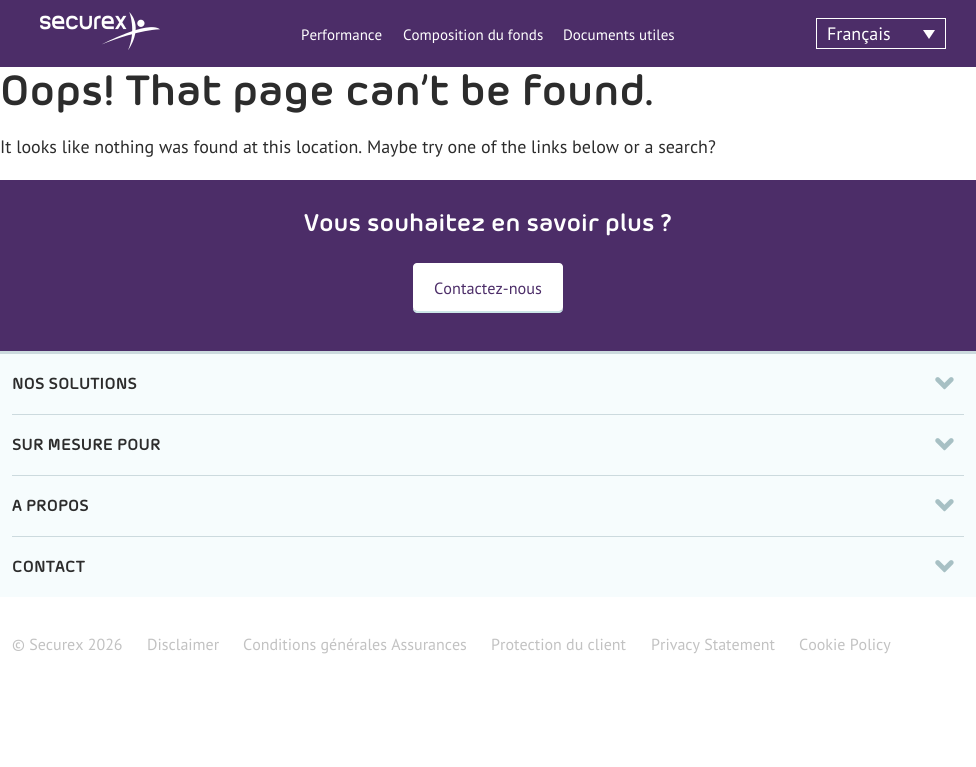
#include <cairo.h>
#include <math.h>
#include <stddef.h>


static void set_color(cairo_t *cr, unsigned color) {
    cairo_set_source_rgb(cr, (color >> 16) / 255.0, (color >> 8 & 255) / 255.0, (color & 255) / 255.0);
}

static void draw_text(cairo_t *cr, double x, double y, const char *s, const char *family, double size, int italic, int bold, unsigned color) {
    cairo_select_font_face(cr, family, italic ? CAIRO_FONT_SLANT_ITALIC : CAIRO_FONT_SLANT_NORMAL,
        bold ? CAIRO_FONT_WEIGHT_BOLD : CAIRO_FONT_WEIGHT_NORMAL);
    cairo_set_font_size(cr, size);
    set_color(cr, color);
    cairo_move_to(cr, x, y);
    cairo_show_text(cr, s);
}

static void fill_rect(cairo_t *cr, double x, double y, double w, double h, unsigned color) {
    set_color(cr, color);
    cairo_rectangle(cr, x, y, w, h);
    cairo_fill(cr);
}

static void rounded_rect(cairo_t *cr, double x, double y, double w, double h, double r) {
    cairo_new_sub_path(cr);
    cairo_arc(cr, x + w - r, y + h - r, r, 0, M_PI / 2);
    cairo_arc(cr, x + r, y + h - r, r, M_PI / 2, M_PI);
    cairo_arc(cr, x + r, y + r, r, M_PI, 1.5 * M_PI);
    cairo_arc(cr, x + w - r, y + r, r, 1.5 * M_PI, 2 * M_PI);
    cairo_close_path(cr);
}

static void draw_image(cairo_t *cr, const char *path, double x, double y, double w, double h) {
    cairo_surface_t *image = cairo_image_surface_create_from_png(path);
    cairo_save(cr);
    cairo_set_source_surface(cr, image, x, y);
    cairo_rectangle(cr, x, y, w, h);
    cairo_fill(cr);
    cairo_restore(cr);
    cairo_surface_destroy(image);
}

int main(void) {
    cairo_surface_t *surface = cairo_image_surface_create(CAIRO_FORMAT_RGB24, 976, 767);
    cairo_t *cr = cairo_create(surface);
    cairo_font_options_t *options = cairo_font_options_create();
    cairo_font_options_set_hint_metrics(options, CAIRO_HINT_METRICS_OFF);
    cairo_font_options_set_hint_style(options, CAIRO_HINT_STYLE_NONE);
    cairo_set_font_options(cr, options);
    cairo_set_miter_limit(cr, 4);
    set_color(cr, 0xFFFFFF);
    cairo_paint(cr);
    fill_rect(cr, 0, 0, 976, 67, 0x4C2D68);
    draw_image(cr, "assets/img1.png", 40, 12, 120, 38);
    draw_text(cr, 301, 40, "Performance", "PT Sans", 15, 0, 0, 0xFFFFFF);
    draw_text(cr, 403, 40, "Composition du fonds", "PT Sans", 15, 0, 0, 0xFFFFFF);
    draw_text(cr, 563, 40, "Documents utiles", "PT Sans", 15, 0, 0, 0xFFFFFF);
    cairo_rectangle(cr, 816.5, 18.5, 129, 30);
    cairo_set_line_width(cr, 1);
    cairo_stroke(cr);
    draw_text(cr, 827, 40, "Français", "PT Sans", 18, 0, 0, 0xFFFFFF);
    cairo_new_path(cr);
    cairo_move_to(cr, 923, 30);
    cairo_line_to(cr, 935, 30);
    cairo_line_to(cr, 929, 39);
    cairo_close_path(cr);
    cairo_fill(cr);
    draw_text(cr, 0, 105, "Oops! That page can’t be found.", "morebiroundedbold", 42, 0, 0, 0x2C2C2C);
    draw_text(cr, 0, 153, "It looks like nothing was found at this location. Maybe try one of the links below or a search?", "PT Sans", 18, 0, 0, 0x2C2C2C);
    fill_rect(cr, 0, 180, 976, 171, 0x4C2D68);
    draw_text(cr, 304, 231, "Vous souhaitez en savoir plus ?", "morebiroundedbold", 24, 0, 0, 0xFFFFFF);
    set_color(cr, 0xCCE6E7);
    cairo_new_path(cr);
    cairo_move_to(cr, 413, 307);
    cairo_line_to(cr, 413, 309);
    cairo_curve_to(cr, 413, 311, 415, 313, 417, 313);
    cairo_line_to(cr, 559, 313);
    cairo_curve_to(cr, 561, 313, 563, 311, 563, 309);
    cairo_line_to(cr, 563, 307);
    cairo_line_to(cr, 562, 310);
    cairo_line_to(cr, 559, 311);
    cairo_line_to(cr, 417, 311);
    cairo_curve_to(cr, 415, 311, 413, 309, 413, 307);
    cairo_close_path(cr);
    cairo_fill(cr);
    set_color(cr, 0xFFFFFF);
    rounded_rect(cr, 413, 263, 150, 48, 4);
    cairo_fill(cr);
    draw_text(cr, 434, 294, "Contactez-nous", "PT Sans", 16.25, 0, 0, 0x4C2D68);
    fill_rect(cr, 0, 354, 976, 243, 0xF6FCFD);
    fill_rect(cr, 0, 351, 976, 3, 0xCCDADE);
    fill_rect(cr, 12, 414, 952, 1, 0xCCDADE);
    draw_text(cr, 12, 389, "NOS SOLUTIONS", "morebiroundedbold", 16, 0, 0, 0x2C2C2C);
    draw_image(cr, "assets/img2.png", 935, 377, 19, 13);
    fill_rect(cr, 12, 475, 952, 1, 0xCCDADE);
    draw_text(cr, 12, 450, "SUR MESURE POUR", "morebiroundedbold", 16, 0, 0, 0x2C2C2C);
    draw_image(cr, "assets/img2.png", 935, 438, 19, 13);
    fill_rect(cr, 12, 536, 952, 1, 0xCCDADE);
    draw_text(cr, 12, 511, "A PROPOS", "morebiroundedbold", 16, 0, 0, 0x2C2C2C);
    draw_image(cr, "assets/img2.png", 935, 499, 19, 13);
    draw_text(cr, 12, 572, "CONTACT", "morebiroundedbold", 16, 0, 0, 0x2C2C2C);
    draw_image(cr, "assets/img2.png", 935, 560, 19, 13);
    draw_text(cr, 12, 650, "© Securex 2026", "PT Sans", 16, 0, 0, 0xC2C2C2);
    draw_text(cr, 147, 650, "Disclaimer", "PT Sans", 16, 0, 0, 0xC2C2C2);
    draw_text(cr, 243, 650, "Conditions générales Assurances", "PT Sans", 16, 0, 0, 0xC2C2C2);
    draw_text(cr, 491, 650, "Protection du client", "PT Sans", 16, 0, 0, 0xC2C2C2);
    draw_text(cr, 651, 650, "Privacy Statement", "PT Sans", 16, 0, 0, 0xC2C2C2);
    draw_text(cr, 799, 650, "Cookie Policy", "PT Sans", 16, 0, 0, 0xC2C2C2);
    cairo_surface_write_to_png(surface, "output.png");
    cairo_font_options_destroy(options);
    cairo_destroy(cr);
    cairo_surface_destroy(surface);
    return 0;
}
